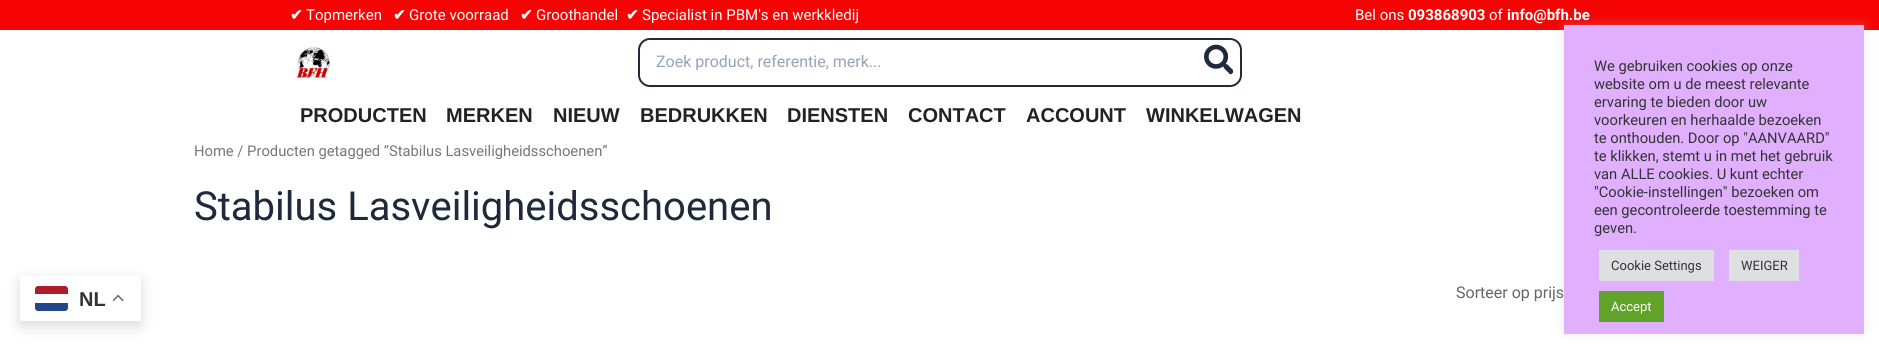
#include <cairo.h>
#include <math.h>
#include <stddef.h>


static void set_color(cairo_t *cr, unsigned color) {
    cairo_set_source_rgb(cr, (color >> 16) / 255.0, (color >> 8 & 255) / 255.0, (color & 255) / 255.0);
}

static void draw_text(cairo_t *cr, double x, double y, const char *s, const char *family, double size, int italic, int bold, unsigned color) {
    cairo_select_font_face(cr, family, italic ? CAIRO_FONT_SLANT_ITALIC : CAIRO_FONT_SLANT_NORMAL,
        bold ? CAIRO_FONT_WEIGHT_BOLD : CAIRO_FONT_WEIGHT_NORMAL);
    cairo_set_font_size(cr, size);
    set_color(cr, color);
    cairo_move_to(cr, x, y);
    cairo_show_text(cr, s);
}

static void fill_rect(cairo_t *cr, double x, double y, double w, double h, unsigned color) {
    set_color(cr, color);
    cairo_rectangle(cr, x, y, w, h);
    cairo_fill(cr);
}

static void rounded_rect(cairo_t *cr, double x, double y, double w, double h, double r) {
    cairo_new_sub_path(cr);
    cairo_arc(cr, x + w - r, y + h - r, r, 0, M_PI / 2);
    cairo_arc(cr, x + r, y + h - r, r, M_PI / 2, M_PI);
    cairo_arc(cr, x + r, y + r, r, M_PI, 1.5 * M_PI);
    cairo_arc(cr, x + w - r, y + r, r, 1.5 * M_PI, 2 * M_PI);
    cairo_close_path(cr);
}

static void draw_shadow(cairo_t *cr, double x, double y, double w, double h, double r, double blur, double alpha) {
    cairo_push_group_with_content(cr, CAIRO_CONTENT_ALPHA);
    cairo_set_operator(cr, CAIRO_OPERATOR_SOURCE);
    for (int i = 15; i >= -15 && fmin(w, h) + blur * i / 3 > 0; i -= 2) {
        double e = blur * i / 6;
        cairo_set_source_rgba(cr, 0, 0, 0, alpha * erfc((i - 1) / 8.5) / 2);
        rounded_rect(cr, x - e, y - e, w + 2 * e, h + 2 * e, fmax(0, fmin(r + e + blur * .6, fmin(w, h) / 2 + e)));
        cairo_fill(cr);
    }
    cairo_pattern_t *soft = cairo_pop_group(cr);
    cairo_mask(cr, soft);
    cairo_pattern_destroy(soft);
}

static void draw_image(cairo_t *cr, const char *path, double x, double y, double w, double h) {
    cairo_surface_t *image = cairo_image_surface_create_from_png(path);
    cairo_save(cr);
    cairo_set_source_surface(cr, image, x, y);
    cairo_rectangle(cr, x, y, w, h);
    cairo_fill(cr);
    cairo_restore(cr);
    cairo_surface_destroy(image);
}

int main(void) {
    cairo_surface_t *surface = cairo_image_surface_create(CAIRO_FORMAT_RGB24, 1879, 349);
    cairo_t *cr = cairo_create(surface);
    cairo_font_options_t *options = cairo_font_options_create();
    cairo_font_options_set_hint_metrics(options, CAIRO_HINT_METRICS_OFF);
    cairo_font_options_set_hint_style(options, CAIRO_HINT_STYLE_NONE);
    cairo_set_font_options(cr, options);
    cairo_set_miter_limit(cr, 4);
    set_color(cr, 0xFFFFFF);
    cairo_paint(cr);
    set_color(cr, 0x000000);
    draw_shadow(cr, 20, 281, 121, 45, 2, 7.5, 0.15);
    set_color(cr, 0xFFFFFF);
    rounded_rect(cr, 20, 276, 121, 45, 2);
    cairo_fill(cr);
    set_color(cr, 0x21468B);
    cairo_new_path(cr);
    cairo_move_to(cr, 35, 303);
    cairo_line_to(cr, 68, 303);
    cairo_line_to(cr, 68, 308);
    cairo_curve_to(cr, 68, 309.5, 66.5, 311, 65, 311);
    cairo_line_to(cr, 38, 311);
    cairo_curve_to(cr, 36.5, 311, 35, 309.5, 35, 308);
    cairo_close_path(cr);
    cairo_fill(cr);
    set_color(cr, 0xAE1C28);
    cairo_new_path(cr);
    cairo_move_to(cr, 38, 286);
    cairo_line_to(cr, 65, 286);
    cairo_curve_to(cr, 66.5, 286, 68, 287.5, 68, 289);
    cairo_line_to(cr, 68, 294);
    cairo_line_to(cr, 35, 294);
    cairo_line_to(cr, 35, 289);
    cairo_curve_to(cr, 35, 287.5, 36.5, 286, 38, 286);
    cairo_close_path(cr);
    cairo_fill(cr);
    draw_text(cr, 79, 306, "NL", "Liberation Sans", 20, 0, 1, 0x333333);
    draw_image(cr, "assets/img1.png", 113, 294, 11, 8);
    fill_rect(cr, 0, 0, 1879, 30, 0xF60303);
    draw_text(cr, 290, 20, "✔", "DejaVu Sans", 15, 0, 1, 0xFFFFFF);
    draw_text(cr, 306, 20, "Topmerken", "Roboto", 15, 0, 0, 0xFFFFFF);
    draw_text(cr, 393, 20, "✔", "DejaVu Sans", 15, 0, 1, 0xFFFFFF);
    draw_text(cr, 409, 20, "Grote voorraad", "Roboto", 15, 0, 0, 0xFFFFFF);
    draw_text(cr, 520, 20, "✔", "DejaVu Sans", 15, 0, 1, 0xFFFFFF);
    draw_text(cr, 536, 20, "Groothandel", "Roboto", 15, 0, 0, 0xFFFFFF);
    draw_text(cr, 626, 20, "✔", "DejaVu Sans", 15, 0, 1, 0xFFFFFF);
    draw_text(cr, 642, 20, "Specialist in PBM's en werkkledij", "Roboto", 15, 0, 0, 0xFFFFFF);
    draw_text(cr, 1355, 20, "Bel ons", "Roboto", 15, 0, 0, 0xFFFFFF);
    draw_text(cr, 1408, 20, "093868903", "Roboto", 15, 0, 1, 0xFFFFFF);
    draw_text(cr, 1489, 20, "of", "Roboto", 15, 0, 0, 0xFFFFFF);
    draw_text(cr, 1507, 20, "info@bfh.be", "Roboto", 15, 0, 1, 0xFFFFFF);
    draw_image(cr, "assets/img2.png", 296, 46, 34, 33);
    rounded_rect(cr, 639, 39, 602, 47, 11);
    set_color(cr, 0x1E293B);
    cairo_stroke(cr);
    set_color(cr, 0xFFFFFF);
    rounded_rect(cr, 640, 40, 600, 45, 12);
    cairo_fill(cr);
    draw_text(cr, 656, 67, "Zoek product, referentie, merk...", "Roboto", 16, 0, 0, 0x94A3B8);
    draw_image(cr, "assets/img3.png", 1204, 44, 29, 31);
    draw_text(cr, 300, 122, "PRODUCTEN", "Liberation Sans", 20, 0, 1, 0x222222);
    draw_text(cr, 446, 122, "MERKEN", "Liberation Sans", 20, 0, 1, 0x222222);
    draw_text(cr, 553, 122, "NIEUW", "Liberation Sans", 20, 0, 1, 0x222222);
    draw_text(cr, 640, 122, "BEDRUKKEN", "Liberation Sans", 20, 0, 1, 0x222222);
    draw_text(cr, 787, 122, "DIENSTEN", "Liberation Sans", 20, 0, 1, 0x222222);
    draw_text(cr, 908, 122, "CONTACT", "Liberation Sans", 20, 0, 1, 0x222222);
    draw_text(cr, 1026, 122, "ACCOUNT", "Liberation Sans", 20, 0, 1, 0x222222);
    draw_text(cr, 1146, 122, "WINKELWAGEN", "Liberation Sans", 20, 0, 1, 0x222222);
    draw_text(cr, 194, 156, "Home / Producten getagged “Stabilus Lasveiligheidsschoenen”", "Roboto", 14.75, 0, 0, 0x777777);
    draw_text(cr, 194, 220, "Stabilus Lasveiligheidsschoenen", "Roboto", 40, 0, 0, 0x1E293B);
    draw_text(cr, 1456, 298, "Sorteer op prijs", "Roboto", 16, 0, 0, 0x666666);
    set_color(cr, 0xACABAB);
    draw_shadow(cr, 1564, 24, 300, 309, 0, 5, 0.3);
    fill_rect(cr, 1564, 25, 300, 309, 0xE0B0FF);
    draw_text(cr, 1594, 71, "We gebruiken cookies op onze", "Roboto", 14.7, 0, 0, 0x333333);
    draw_text(cr, 1594, 89, "website om u de meest relevante", "Roboto", 14.7, 0, 0, 0x333333);
    draw_text(cr, 1594, 107, "ervaring te bieden door uw", "Roboto", 14.7, 0, 0, 0x333333);
    draw_text(cr, 1594, 125, "voorkeuren en herhaalde bezoeken", "Roboto", 14.7, 0, 0, 0x333333);
    draw_text(cr, 1594, 143, "te onthouden. Door op \"AANVAARD\"", "Roboto", 14.7, 0, 0, 0x333333);
    draw_text(cr, 1594, 161, "te klikken, stemt u in met het gebruik", "Roboto", 14.7, 0, 0, 0x333333);
    draw_text(cr, 1594, 179, "van ALLE cookies. U kunt echter", "Roboto", 14.7, 0, 0, 0x333333);
    draw_text(cr, 1594, 197, "\"Cookie-instellingen\" bezoeken om", "Roboto", 14.7, 0, 0, 0x333333);
    draw_text(cr, 1594, 215, "een gecontroleerde toestemming te", "Roboto", 14.7, 0, 0, 0x333333);
    draw_text(cr, 1594, 233, "geven.", "Roboto", 14.7, 0, 0, 0x333333);
    fill_rect(cr, 1599, 250, 115, 31, 0xDEDFE0);
    draw_text(cr, 1611, 270, "Cookie Settings", "Roboto", 13, 0, 0, 0x333333);
    fill_rect(cr, 1729, 250, 70, 31, 0xDEDFE0);
    draw_text(cr, 1741, 270, "WEIGER", "Roboto", 13, 0, 0, 0x333333);
    fill_rect(cr, 1599, 291, 65, 31, 0x61A229);
    draw_text(cr, 1611, 311, "Accept", "Roboto", 13, 0, 0, 0xFFFFFF);
    cairo_surface_write_to_png(surface, "output.png");
    cairo_font_options_destroy(options);
    cairo_destroy(cr);
    cairo_surface_destroy(surface);
    return 0;
}
